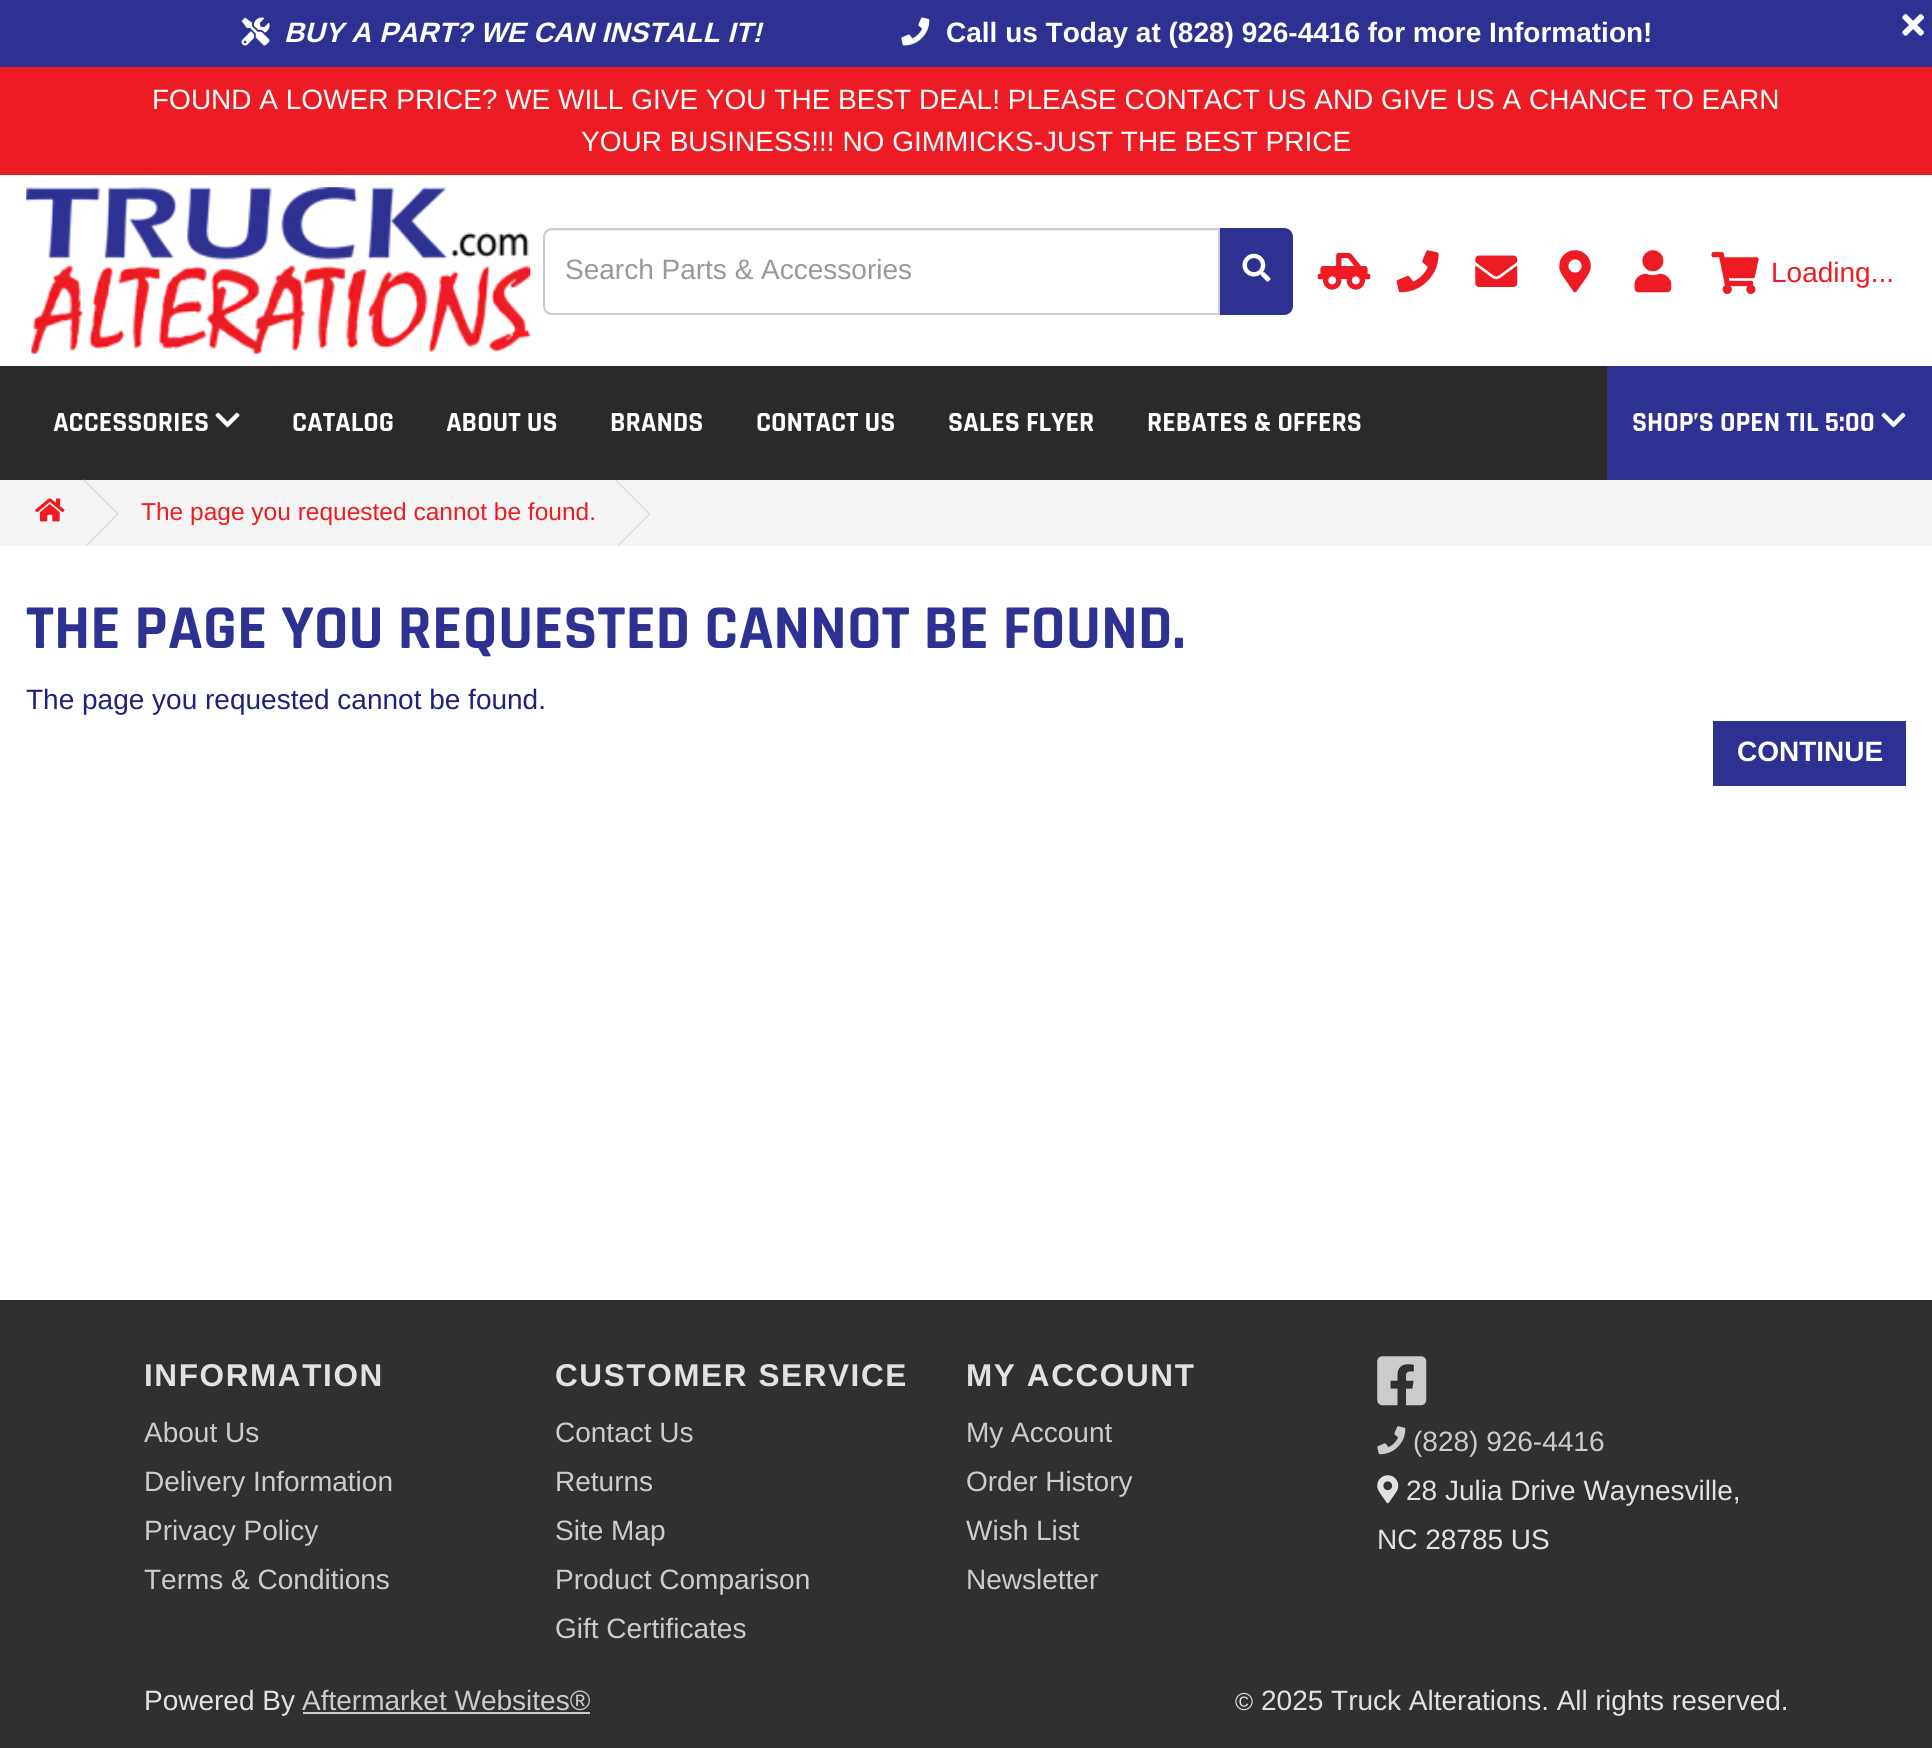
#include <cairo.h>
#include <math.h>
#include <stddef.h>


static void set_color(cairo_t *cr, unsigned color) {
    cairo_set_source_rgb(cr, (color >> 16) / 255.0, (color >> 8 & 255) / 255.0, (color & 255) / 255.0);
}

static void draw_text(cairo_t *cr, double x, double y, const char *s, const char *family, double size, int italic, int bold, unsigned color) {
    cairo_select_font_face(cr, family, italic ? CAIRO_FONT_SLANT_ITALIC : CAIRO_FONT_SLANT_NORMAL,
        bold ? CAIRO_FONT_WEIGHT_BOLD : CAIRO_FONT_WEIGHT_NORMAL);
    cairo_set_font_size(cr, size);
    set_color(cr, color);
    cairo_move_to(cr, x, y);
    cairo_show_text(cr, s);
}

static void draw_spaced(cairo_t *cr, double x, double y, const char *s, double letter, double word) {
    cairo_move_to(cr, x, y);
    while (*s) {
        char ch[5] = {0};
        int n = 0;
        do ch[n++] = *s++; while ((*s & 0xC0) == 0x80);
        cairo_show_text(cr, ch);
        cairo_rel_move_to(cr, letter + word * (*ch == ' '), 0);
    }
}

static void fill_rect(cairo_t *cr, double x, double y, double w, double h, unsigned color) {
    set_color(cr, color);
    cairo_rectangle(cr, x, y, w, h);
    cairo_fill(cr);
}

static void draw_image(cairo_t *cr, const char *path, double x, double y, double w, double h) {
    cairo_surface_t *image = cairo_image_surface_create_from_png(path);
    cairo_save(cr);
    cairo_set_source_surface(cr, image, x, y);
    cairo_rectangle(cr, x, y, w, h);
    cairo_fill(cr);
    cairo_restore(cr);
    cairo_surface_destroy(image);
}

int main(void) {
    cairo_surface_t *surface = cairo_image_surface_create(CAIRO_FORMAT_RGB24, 1932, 1748);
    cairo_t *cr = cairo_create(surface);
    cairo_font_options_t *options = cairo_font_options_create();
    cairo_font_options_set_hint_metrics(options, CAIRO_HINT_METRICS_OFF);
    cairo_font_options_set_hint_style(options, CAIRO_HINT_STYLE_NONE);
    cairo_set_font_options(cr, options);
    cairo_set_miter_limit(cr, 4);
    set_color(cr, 0xFFFFFF);
    cairo_paint(cr);
    fill_rect(cr, 0, 0, 1932, 67, 0x2E3192);
    draw_image(cr, "assets/img1.png", 241, 17, 29, 29);
    draw_text(cr, 284, 42, "BUY A PART? WE CAN INSTALL IT!", "Arimo", 28, 1, 1, 0xFFFFFF);
    draw_image(cr, "assets/img2.png", 901, 17, 29, 29);
    draw_text(cr, 946, 42, "Call us Today at (828) 926-4416 for more Information!", "Arimo", 28, 0, 1, 0xFFFFFF);
    draw_image(cr, "assets/img3.png", 1902, 14, 22, 22);
    fill_rect(cr, 0, 67, 1932, 108, 0xED1C24);
    draw_text(cr, 152, 109, "FOUND A LOWER PRICE? WE WILL GIVE YOU THE BEST DEAL! PLEASE CONTACT US AND GIVE US A CHANCE TO EARN", "Arimo", 28, 0, 0, 0xFFFFFF);
    draw_text(cr, 581, 151, "YOUR BUSINESS!!! NO GIMMICKS-JUST THE BEST PRICE", "Arimo", 28, 0, 0, 0xFFFFFF);
    draw_image(cr, "assets/img4.png", 26, 187, 505, 167);
    set_color(cr, 0xECECEC);
    cairo_new_path(cr);
    cairo_move_to(cr, 551, 231);
    cairo_line_to(cr, 1218, 231);
    cairo_line_to(cr, 1218, 229);
    cairo_line_to(cr, 551, 229);
    cairo_curve_to(cr, 546, 229, 544, 234, 544, 238);
    cairo_curve_to(cr, 544, 234, 547, 231, 551, 231);
    cairo_close_path(cr);
    cairo_fill(cr);
    cairo_new_path(cr);
    cairo_move_to(cr, 552, 229);
    cairo_line_to(cr, 1219, 229);
    cairo_line_to(cr, 1219, 314);
    cairo_line_to(cr, 552, 314);
    cairo_curve_to(cr, 547.5, 314, 544, 310.5, 544, 306);
    cairo_line_to(cr, 544, 237);
    cairo_curve_to(cr, 544, 232.5, 547.5, 229, 552, 229);
    cairo_close_path(cr);
    set_color(cr, 0xCCCCCC);
    cairo_stroke(cr);
    draw_text(cr, 565, 279, "Search Parts & Accessories", "Arimo", 28, 0, 0, 0x999999);
    set_color(cr, 0x2E3192);
    cairo_new_path(cr);
    cairo_move_to(cr, 1221, 229);
    cairo_line_to(cr, 1284, 229);
    cairo_curve_to(cr, 1288.5, 229, 1292, 232.5, 1292, 237);
    cairo_line_to(cr, 1292, 306);
    cairo_curve_to(cr, 1292, 310.5, 1288.5, 314, 1284, 314);
    cairo_line_to(cr, 1221, 314);
    cairo_close_path(cr);
    cairo_fill_preserve(cr);
    cairo_stroke(cr);
    draw_image(cr, "assets/img5.png", 1242, 253, 29, 29);
    draw_image(cr, "assets/img6.png", 1317, 252, 54, 38);
    draw_image(cr, "assets/img7.png", 1396, 250, 43, 43);
    draw_image(cr, "assets/img8.png", 1475, 255, 43, 32);
    draw_image(cr, "assets/img9.png", 1559, 250, 32, 43);
    draw_image(cr, "assets/img10.png", 1634, 250, 38, 43);
    draw_image(cr, "assets/img11.png", 1711, 252, 48, 42);
    draw_text(cr, 1771, 282, "Loading...", "Arimo", 28, 0, 0, 0xED1C24);
    fill_rect(cr, 0, 366, 1607, 114, 0x2A2A2A);
    draw_text(cr, 53, 431, "ACCESSORIES", "Rajdhani", 28, 0, 1, 0xFFFFFF);
    draw_image(cr, "assets/img12.png", 215, 412, 25, 16);
    draw_text(cr, 292, 431, "CATALOG", "Rajdhani", 28, 0, 1, 0xFFFFFF);
    draw_text(cr, 446, 431, "ABOUT US", "Rajdhani", 28, 0, 1, 0xFFFFFF);
    draw_text(cr, 610, 431, "BRANDS", "Rajdhani", 28, 0, 1, 0xFFFFFF);
    draw_text(cr, 756, 431, "CONTACT US", "Rajdhani", 28, 0, 1, 0xFFFFFF);
    draw_text(cr, 948, 431, "SALES FLYER", "Rajdhani", 28, 0, 1, 0xFFFFFF);
    draw_text(cr, 1147, 431, "REBATES & OFFERS", "Rajdhani", 28, 0, 1, 0xFFFFFF);
    fill_rect(cr, 1607, 366, 325, 114, 0x2E3192);
    draw_text(cr, 1632, 431, "SHOP’S OPEN TIL 5:00", "Rajdhani", 28, 0, 1, 0xFFFFFF);
    draw_image(cr, "assets/img13.png", 1881, 412, 25, 16);
    fill_rect(cr, 0, 480, 1932, 66, 0xF5F5F5);
    draw_image(cr, "assets/img14.png", 35, 498, 30, 24);
    set_color(cr, 0xDDDDDD);
    cairo_new_path(cr);
    cairo_move_to(cr, 83, 480.5);
    cairo_line_to(cr, 84.5, 479.5);
    cairo_line_to(cr, 119, 514);
    cairo_line_to(cr, 117.5, 515);
    cairo_close_path(cr);
    cairo_fill(cr);
    cairo_new_path(cr);
    cairo_move_to(cr, 85.5, 545);
    cairo_line_to(cr, 117.5, 513);
    cairo_line_to(cr, 119, 514);
    cairo_line_to(cr, 87, 546);
    cairo_close_path(cr);
    cairo_fill(cr);
    draw_text(cr, 141, 520, "The page you requested cannot be found.", "Arimo", 24.5, 0, 0, 0xED1C24);
    set_color(cr, 0xDDDDDD);
    cairo_new_path(cr);
    cairo_move_to(cr, 615, 480.5);
    cairo_line_to(cr, 616, 479.5);
    cairo_line_to(cr, 650.5, 514);
    cairo_line_to(cr, 649.5, 515);
    cairo_close_path(cr);
    cairo_fill(cr);
    cairo_new_path(cr);
    cairo_move_to(cr, 617.5, 545);
    cairo_line_to(cr, 649.5, 513);
    cairo_line_to(cr, 650.5, 514);
    cairo_line_to(cr, 618.5, 546);
    cairo_close_path(cr);
    cairo_fill(cr);
    draw_text(cr, 26, 648, "THE PAGE YOU REQUESTED CANNOT BE FOUND.", "Rajdhani", 63, 0, 1, 0x2E3192);
    draw_text(cr, 26, 709, "The page you requested cannot be found.", "Arimo", 28, 0, 0, 0x1F217F);
    fill_rect(cr, 1713, 721, 193, 65, 0x2E3192);
    draw_text(cr, 1737, 761, "CONTINUE", "Arimo", 28, 0, 1, 0xFFFFFF);
    fill_rect(cr, 0, 1300, 1932, 448, 0x303030);
    cairo_set_font_size(cr, 31.5);
    set_color(cr, 0xE2E2E2);
    draw_spaced(cr, 144, 1386, "INFORMATION", 1.6, 0);
    draw_text(cr, 144, 1442, "About Us", "Arimo", 28, 0, 0, 0xCCCCCC);
    draw_text(cr, 144, 1491, "Delivery Information", "Arimo", 28, 0, 0, 0xCCCCCC);
    draw_text(cr, 144, 1540, "Privacy Policy", "Arimo", 28, 0, 0, 0xCCCCCC);
    draw_text(cr, 144, 1589, "Terms & Conditions", "Arimo", 28, 0, 0, 0xCCCCCC);
    cairo_select_font_face(cr, "Arimo", CAIRO_FONT_SLANT_NORMAL, CAIRO_FONT_WEIGHT_BOLD);
    cairo_set_font_size(cr, 31.5);
    set_color(cr, 0xE2E2E2);
    draw_spaced(cr, 555, 1386, "CUSTOMER SERVICE", 1.6, 0);
    draw_text(cr, 555, 1442, "Contact Us", "Arimo", 28, 0, 0, 0xCCCCCC);
    draw_text(cr, 555, 1491, "Returns", "Arimo", 28, 0, 0, 0xCCCCCC);
    draw_text(cr, 555, 1540, "Site Map", "Arimo", 28, 0, 0, 0xCCCCCC);
    draw_text(cr, 555, 1589, "Product Comparison", "Arimo", 28, 0, 0, 0xCCCCCC);
    draw_text(cr, 555, 1638, "Gift Certificates", "Arimo", 28, 0, 0, 0xCCCCCC);
    cairo_select_font_face(cr, "Arimo", CAIRO_FONT_SLANT_NORMAL, CAIRO_FONT_WEIGHT_BOLD);
    cairo_set_font_size(cr, 31.5);
    set_color(cr, 0xE2E2E2);
    draw_spaced(cr, 966, 1386, "MY ACCOUNT", 1.6, 0);
    draw_text(cr, 966, 1442, "My Account", "Arimo", 28, 0, 0, 0xCCCCCC);
    draw_text(cr, 966, 1491, "Order History", "Arimo", 28, 0, 0, 0xCCCCCC);
    draw_text(cr, 966, 1540, "Wish List", "Arimo", 28, 0, 0, 0xCCCCCC);
    draw_text(cr, 966, 1589, "Newsletter", "Arimo", 28, 0, 0, 0xCCCCCC);
    draw_image(cr, "assets/img15.png", 1377, 1356, 50, 50);
    draw_image(cr, "assets/img16.png", 1377, 1426, 29, 29);
    draw_text(cr, 1413, 1451, "(828) 926-4416", "Arimo", 28, 0, 0, 0xCCCCCC);
    draw_image(cr, "assets/img17.png", 1377, 1475, 22, 29);
    draw_text(cr, 1406, 1500, "28 Julia Drive Waynesville,", "Arimo", 28, 0, 0, 0xE2E2E2);
    draw_text(cr, 1377, 1549, "NC 28785 US", "Arimo", 28, 0, 0, 0xE2E2E2);
    draw_text(cr, 144, 1710, "Powered By", "Arimo", 28, 0, 0, 0xE2E2E2);
    draw_text(cr, 302, 1710, "Aftermarket Websites®", "Arimo", 28, 0, 0, 0xCCCCCC);
    fill_rect(cr, 303, 1712, 287, 2, 0xCCCCCC);
    draw_text(cr, 1235, 1710, "©", "Arimo", 24.5, 0, 0, 0xE2E2E2);
    draw_text(cr, 1261, 1710, "2025 Truck Alterations. All rights reserved.", "Arimo", 28, 0, 0, 0xE2E2E2);
    cairo_surface_write_to_png(surface, "output.png");
    cairo_font_options_destroy(options);
    cairo_destroy(cr);
    cairo_surface_destroy(surface);
    return 0;
}
